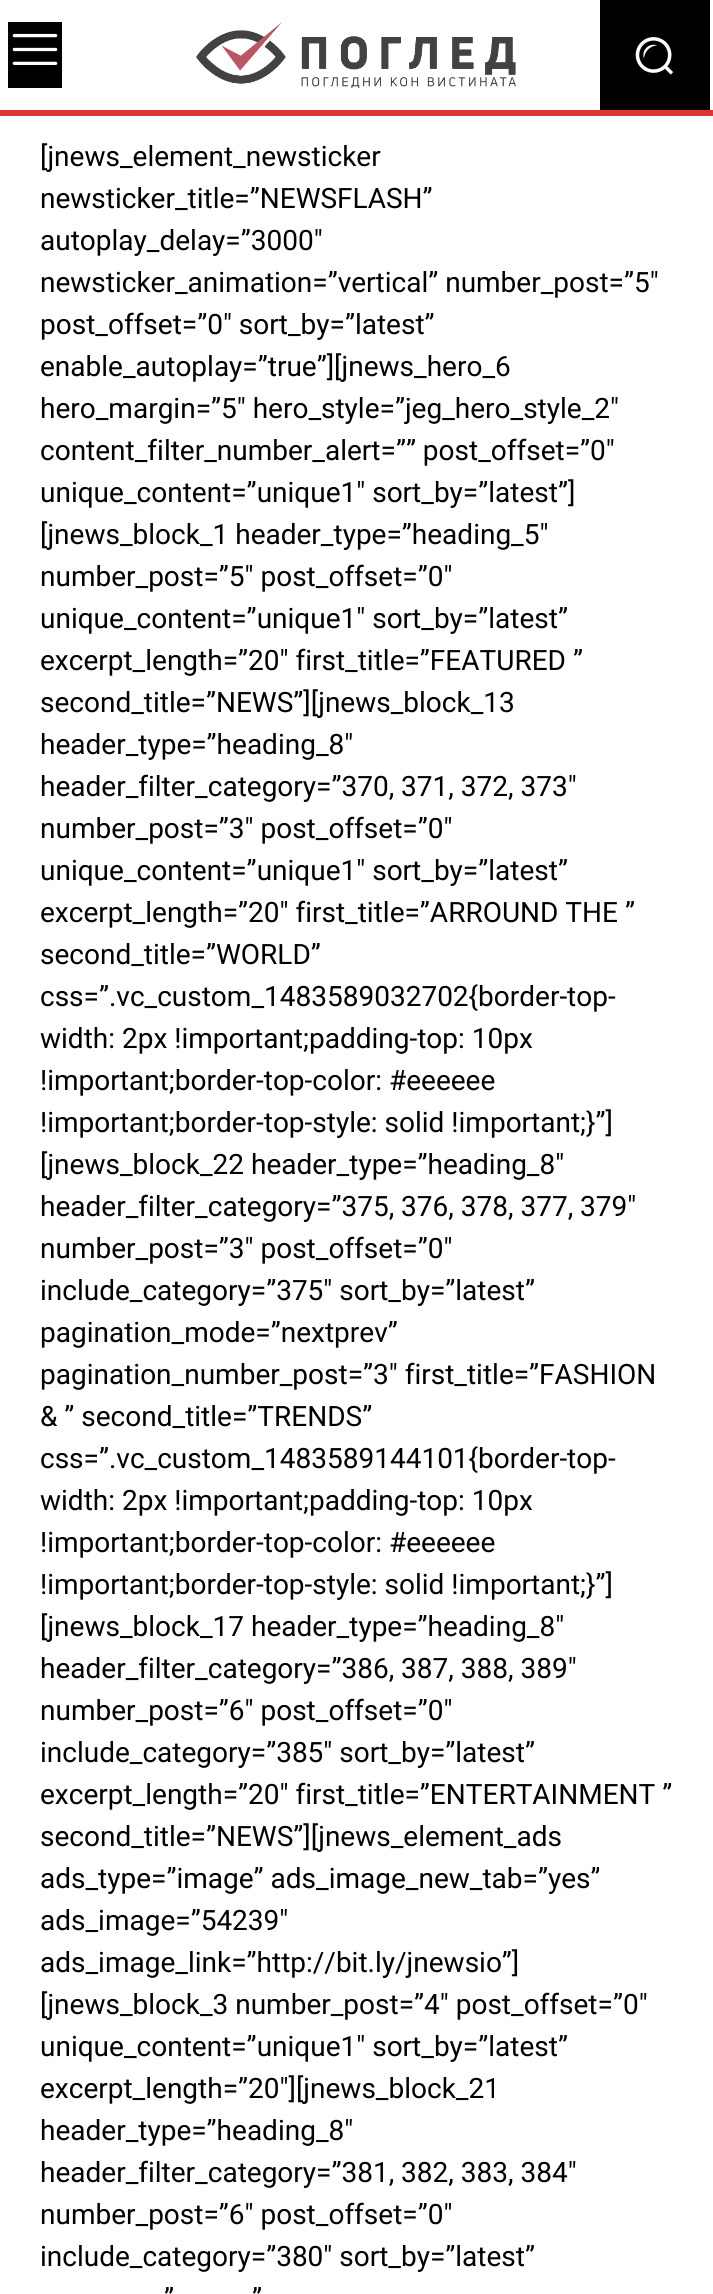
#include <cairo.h>
#include <math.h>
#include <stddef.h>


static void set_color(cairo_t *cr, unsigned color) {
    cairo_set_source_rgb(cr, (color >> 16) / 255.0, (color >> 8 & 255) / 255.0, (color & 255) / 255.0);
}

static void draw_text(cairo_t *cr, double x, double y, const char *s, const char *family, double size, int italic, int bold, unsigned color) {
    cairo_select_font_face(cr, family, italic ? CAIRO_FONT_SLANT_ITALIC : CAIRO_FONT_SLANT_NORMAL,
        bold ? CAIRO_FONT_WEIGHT_BOLD : CAIRO_FONT_WEIGHT_NORMAL);
    cairo_set_font_size(cr, size);
    set_color(cr, color);
    cairo_move_to(cr, x, y);
    cairo_show_text(cr, s);
}

static void fill_rect(cairo_t *cr, double x, double y, double w, double h, unsigned color) {
    set_color(cr, color);
    cairo_rectangle(cr, x, y, w, h);
    cairo_fill(cr);
}

static void draw_image(cairo_t *cr, const char *path, double x, double y, double w, double h) {
    cairo_surface_t *image = cairo_image_surface_create_from_png(path);
    cairo_save(cr);
    cairo_set_source_surface(cr, image, x, y);
    cairo_rectangle(cr, x, y, w, h);
    cairo_fill(cr);
    cairo_restore(cr);
    cairo_surface_destroy(image);
}

int main(void) {
    cairo_surface_t *surface = cairo_image_surface_create(CAIRO_FORMAT_RGB24, 713, 2294);
    cairo_t *cr = cairo_create(surface);
    cairo_font_options_t *options = cairo_font_options_create();
    cairo_font_options_set_hint_metrics(options, CAIRO_HINT_METRICS_OFF);
    cairo_font_options_set_hint_style(options, CAIRO_HINT_STYLE_NONE);
    cairo_set_font_options(cr, options);
    cairo_set_miter_limit(cr, 4);
    set_color(cr, 0xFFFFFF);
    cairo_paint(cr);
    fill_rect(cr, 8, 22, 54, 66, 0x000000);
    draw_image(cr, "assets/img1.png", 12, 33, 46, 32);
    draw_image(cr, "assets/img2.png", 196, 22, 320, 66);
    fill_rect(cr, 600, 0, 110, 110, 0x000000);
    draw_image(cr, "assets/img3.png", 635, 37, 39, 38);
    fill_rect(cr, 0, 110, 713, 6, 0xDD3333);
    draw_text(cr, 40, 166, "[jnews_element_newsticker", "Roboto", 28, 0, 0, 0x000000);
    draw_text(cr, 40, 208, "newsticker_title=”NEWSFLASH”", "Roboto", 28, 0, 0, 0x000000);
    draw_text(cr, 40, 250, "autoplay_delay=”3000″", "Roboto", 28, 0, 0, 0x000000);
    draw_text(cr, 40, 292, "newsticker_animation=”vertical” number_post=”5″", "Roboto", 28, 0, 0, 0x000000);
    draw_text(cr, 40, 334, "post_offset=”0″ sort_by=”latest”", "Roboto", 28, 0, 0, 0x000000);
    draw_text(cr, 40, 376, "enable_autoplay=”true”][jnews_hero_6", "Roboto", 28, 0, 0, 0x000000);
    draw_text(cr, 40, 418, "hero_margin=”5″ hero_style=”jeg_hero_style_2″", "Roboto", 28, 0, 0, 0x000000);
    draw_text(cr, 40, 460, "content_filter_number_alert=”” post_offset=”0″", "Roboto", 28, 0, 0, 0x000000);
    draw_text(cr, 40, 502, "unique_content=”unique1″ sort_by=”latest”]", "Roboto", 28, 0, 0, 0x000000);
    draw_text(cr, 40, 544, "[jnews_block_1 header_type=”heading_5″", "Roboto", 28, 0, 0, 0x000000);
    draw_text(cr, 40, 586, "number_post=”5″ post_offset=”0″", "Roboto", 28, 0, 0, 0x000000);
    draw_text(cr, 40, 628, "unique_content=”unique1″ sort_by=”latest”", "Roboto", 28, 0, 0, 0x000000);
    draw_text(cr, 40, 670, "excerpt_length=”20″ first_title=”FEATURED ”", "Roboto", 28, 0, 0, 0x000000);
    draw_text(cr, 40, 712, "second_title=”NEWS”][jnews_block_13", "Roboto", 28, 0, 0, 0x000000);
    draw_text(cr, 40, 754, "header_type=”heading_8″", "Roboto", 28, 0, 0, 0x000000);
    draw_text(cr, 40, 796, "header_filter_category=”370, 371, 372, 373″", "Roboto", 28, 0, 0, 0x000000);
    draw_text(cr, 40, 838, "number_post=”3″ post_offset=”0″", "Roboto", 28, 0, 0, 0x000000);
    draw_text(cr, 40, 880, "unique_content=”unique1″ sort_by=”latest”", "Roboto", 28, 0, 0, 0x000000);
    draw_text(cr, 40, 922, "excerpt_length=”20″ first_title=”ARROUND THE ”", "Roboto", 28, 0, 0, 0x000000);
    draw_text(cr, 40, 964, "second_title=”WORLD”", "Roboto", 28, 0, 0, 0x000000);
    draw_text(cr, 40, 1006, "css=”.vc_custom_1483589032702{border-top-", "Roboto", 28, 0, 0, 0x000000);
    draw_text(cr, 40, 1048, "width: 2px !important;padding-top: 10px", "Roboto", 28, 0, 0, 0x000000);
    draw_text(cr, 40, 1090, "!important;border-top-color: #eeeeee", "Roboto", 28, 0, 0, 0x000000);
    draw_text(cr, 40, 1132, "!important;border-top-style: solid !important;}”]", "Roboto", 28, 0, 0, 0x000000);
    draw_text(cr, 40, 1174, "[jnews_block_22 header_type=”heading_8″", "Roboto", 28, 0, 0, 0x000000);
    draw_text(cr, 40, 1216, "header_filter_category=”375, 376, 378, 377, 379″", "Roboto", 28, 0, 0, 0x000000);
    draw_text(cr, 40, 1258, "number_post=”3″ post_offset=”0″", "Roboto", 28, 0, 0, 0x000000);
    draw_text(cr, 40, 1300, "include_category=”375″ sort_by=”latest”", "Roboto", 28, 0, 0, 0x000000);
    draw_text(cr, 40, 1342, "pagination_mode=”nextprev”", "Roboto", 28, 0, 0, 0x000000);
    draw_text(cr, 40, 1384, "pagination_number_post=”3″ first_title=”FASHION", "Roboto", 28, 0, 0, 0x000000);
    draw_text(cr, 40, 1426, "& ” second_title=”TRENDS”", "Roboto", 28, 0, 0, 0x000000);
    draw_text(cr, 40, 1468, "css=”.vc_custom_1483589144101{border-top-", "Roboto", 28, 0, 0, 0x000000);
    draw_text(cr, 40, 1510, "width: 2px !important;padding-top: 10px", "Roboto", 28, 0, 0, 0x000000);
    draw_text(cr, 40, 1552, "!important;border-top-color: #eeeeee", "Roboto", 28, 0, 0, 0x000000);
    draw_text(cr, 40, 1594, "!important;border-top-style: solid !important;}”]", "Roboto", 28, 0, 0, 0x000000);
    draw_text(cr, 40, 1636, "[jnews_block_17 header_type=”heading_8″", "Roboto", 28, 0, 0, 0x000000);
    draw_text(cr, 40, 1678, "header_filter_category=”386, 387, 388, 389″", "Roboto", 28, 0, 0, 0x000000);
    draw_text(cr, 40, 1720, "number_post=”6″ post_offset=”0″", "Roboto", 28, 0, 0, 0x000000);
    draw_text(cr, 40, 1762, "include_category=”385″ sort_by=”latest”", "Roboto", 28, 0, 0, 0x000000);
    draw_text(cr, 40, 1804, "excerpt_length=”20″ first_title=”ENTERTAINMENT ”", "Roboto", 28, 0, 0, 0x000000);
    draw_text(cr, 40, 1846, "second_title=”NEWS”][jnews_element_ads", "Roboto", 28, 0, 0, 0x000000);
    draw_text(cr, 40, 1888, "ads_type=”image” ads_image_new_tab=”yes”", "Roboto", 28, 0, 0, 0x000000);
    draw_text(cr, 40, 1930, "ads_image=”54239″", "Roboto", 28, 0, 0, 0x000000);
    draw_text(cr, 40, 1972, "ads_image_link=”http://bit.ly/jnewsio”]", "Roboto", 28, 0, 0, 0x000000);
    draw_text(cr, 40, 2014, "[jnews_block_3 number_post=”4″ post_offset=”0″", "Roboto", 28, 0, 0, 0x000000);
    draw_text(cr, 40, 2056, "unique_content=”unique1″ sort_by=”latest”", "Roboto", 28, 0, 0, 0x000000);
    draw_text(cr, 40, 2098, "excerpt_length=”20″][jnews_block_21", "Roboto", 28, 0, 0, 0x000000);
    draw_text(cr, 40, 2140, "header_type=”heading_8″", "Roboto", 28, 0, 0, 0x000000);
    draw_text(cr, 40, 2182, "header_filter_category=”381, 382, 383, 384″", "Roboto", 28, 0, 0, 0x000000);
    draw_text(cr, 40, 2224, "number_post=”6″ post_offset=”0″", "Roboto", 28, 0, 0, 0x000000);
    draw_text(cr, 40, 2266, "include_category=”380″ sort_by=”latest”", "Roboto", 28, 0, 0, 0x000000);
    draw_text(cr, 164, 2308, "”", "Roboto", 28, 0, 0, 0x000000);
    draw_text(cr, 252, 2308, "”", "Roboto", 28, 0, 0, 0x000000);
    cairo_surface_write_to_png(surface, "output.png");
    cairo_font_options_destroy(options);
    cairo_destroy(cr);
    cairo_surface_destroy(surface);
    return 0;
}
